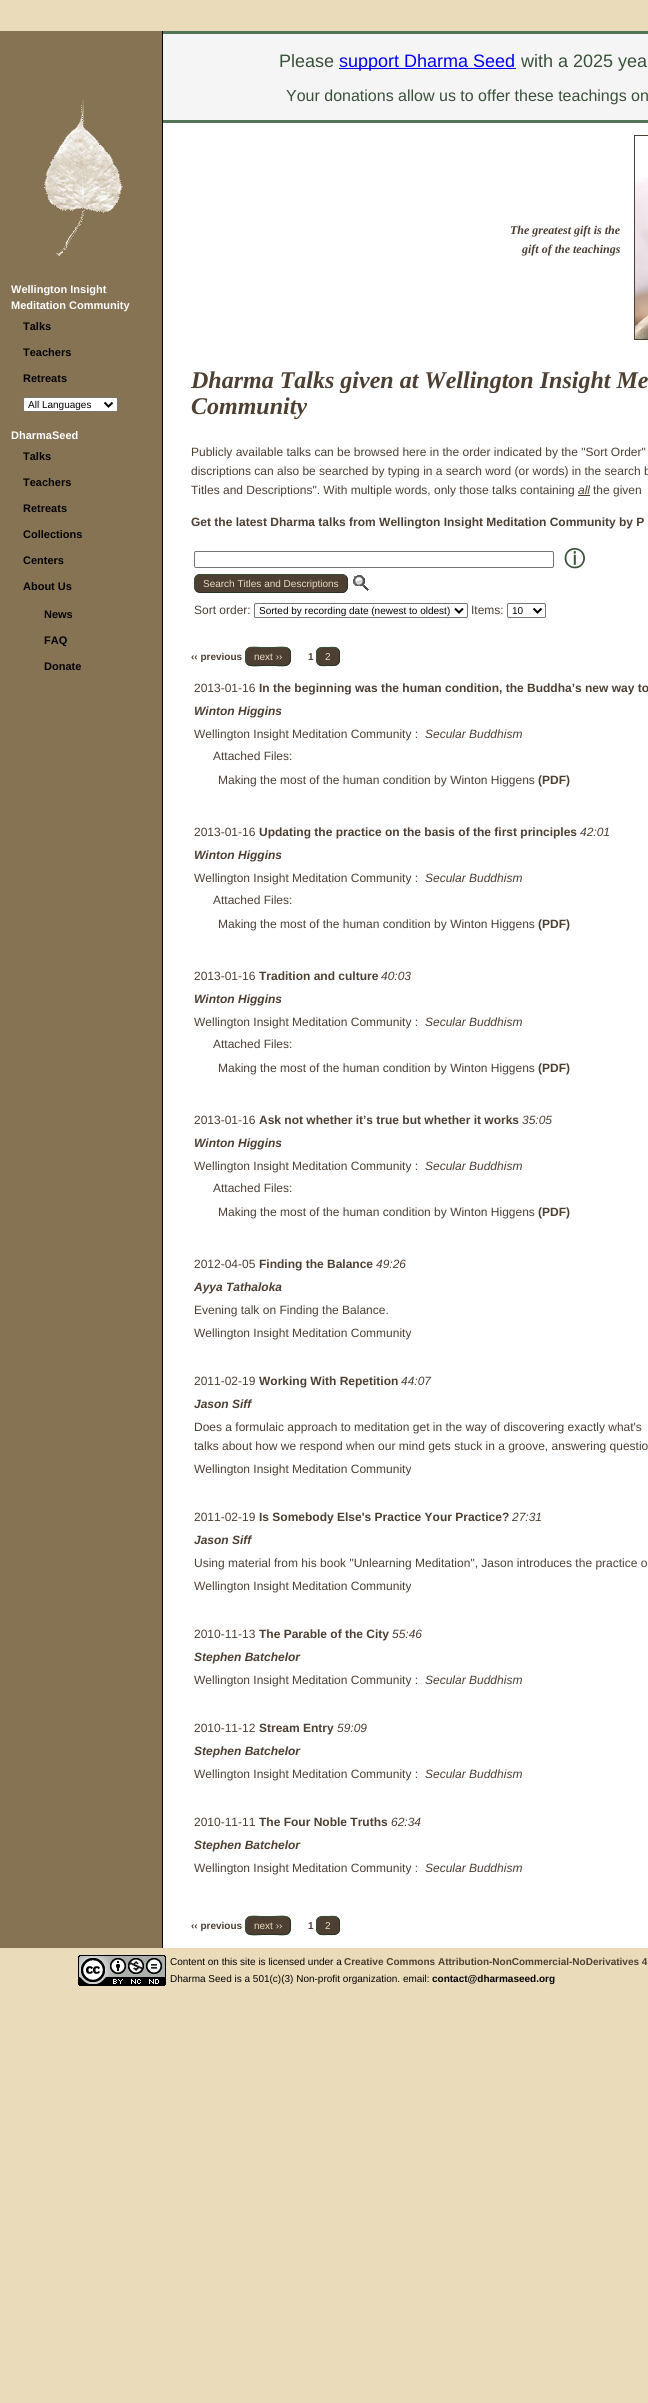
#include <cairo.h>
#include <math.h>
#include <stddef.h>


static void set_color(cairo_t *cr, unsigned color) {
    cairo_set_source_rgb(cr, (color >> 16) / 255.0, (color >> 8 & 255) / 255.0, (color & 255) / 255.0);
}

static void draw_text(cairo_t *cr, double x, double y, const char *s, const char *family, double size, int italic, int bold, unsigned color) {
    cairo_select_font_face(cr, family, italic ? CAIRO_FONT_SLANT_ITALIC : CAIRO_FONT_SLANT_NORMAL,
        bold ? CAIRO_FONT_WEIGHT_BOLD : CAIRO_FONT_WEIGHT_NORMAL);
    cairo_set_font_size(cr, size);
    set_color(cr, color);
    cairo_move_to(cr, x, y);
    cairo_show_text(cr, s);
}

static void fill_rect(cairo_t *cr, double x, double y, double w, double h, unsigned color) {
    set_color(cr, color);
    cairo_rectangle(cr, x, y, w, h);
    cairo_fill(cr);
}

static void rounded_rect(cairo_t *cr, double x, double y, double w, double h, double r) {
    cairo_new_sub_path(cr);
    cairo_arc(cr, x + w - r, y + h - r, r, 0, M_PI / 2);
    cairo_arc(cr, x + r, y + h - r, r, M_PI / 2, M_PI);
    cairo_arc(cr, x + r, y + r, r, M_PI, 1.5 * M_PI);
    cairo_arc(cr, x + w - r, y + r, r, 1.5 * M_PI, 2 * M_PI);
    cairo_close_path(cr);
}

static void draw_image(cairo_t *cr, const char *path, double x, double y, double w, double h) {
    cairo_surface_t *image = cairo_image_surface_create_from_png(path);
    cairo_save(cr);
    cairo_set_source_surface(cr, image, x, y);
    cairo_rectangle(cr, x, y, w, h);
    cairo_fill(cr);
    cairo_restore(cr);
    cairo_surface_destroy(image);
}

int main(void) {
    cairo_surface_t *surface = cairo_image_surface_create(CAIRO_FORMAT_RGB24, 648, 2403);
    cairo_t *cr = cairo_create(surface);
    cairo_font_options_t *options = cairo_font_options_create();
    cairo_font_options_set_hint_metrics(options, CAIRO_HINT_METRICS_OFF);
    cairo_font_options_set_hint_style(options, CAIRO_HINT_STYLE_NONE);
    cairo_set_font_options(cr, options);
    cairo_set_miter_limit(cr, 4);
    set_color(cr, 0xEADBBA);
    cairo_paint(cr);
    fill_rect(cr, 0, 31, 162, 1917, 0x867353);
    draw_image(cr, "assets/img1.png", 44, 100, 79, 156);
    draw_text(cr, 11, 293, "Wellington Insight", "Liberation Sans", 11, 0, 1, 0xFFFFFF);
    draw_text(cr, 11, 309, "Meditation Community", "Liberation Sans", 11, 0, 1, 0xFFFFFF);
    draw_text(cr, 23, 330, "Talks", "Liberation Sans", 11, 0, 1, 0x040203);
    draw_text(cr, 23, 356, "Teachers", "Liberation Sans", 11, 0, 1, 0x040203);
    draw_text(cr, 23, 382, "Retreats", "Liberation Sans", 11, 0, 1, 0x040203);
    set_color(cr, 0xFFFFFF);
    rounded_rect(cr, 23.5, 397.5, 94, 14, 1.5);
    cairo_fill_preserve(cr);
    set_color(cr, 0x767676);
    cairo_set_line_width(cr, 1);
    cairo_stroke(cr);
    cairo_new_path(cr);
    cairo_move_to(cr, 104.5, 402.5);
    cairo_line_to(cr, 108.5, 406.5);
    cairo_line_to(cr, 112.5, 402.5);
    set_color(cr, 0x000000);
    cairo_set_line_width(cr, 2);
    cairo_stroke(cr);
    draw_text(cr, 28, 408, "All Languages", "Liberation Sans", 10, 0, 0, 0x040203);
    draw_text(cr, 11, 439, "DharmaSeed", "Liberation Sans", 11, 0, 1, 0xFFFFFF);
    draw_text(cr, 23, 460, "Talks", "Liberation Sans", 11, 0, 1, 0x040203);
    draw_text(cr, 23, 486, "Teachers", "Liberation Sans", 11, 0, 1, 0x040203);
    draw_text(cr, 23, 512, "Retreats", "Liberation Sans", 11, 0, 1, 0x040203);
    draw_text(cr, 23, 538, "Collections", "Liberation Sans", 11, 0, 1, 0x040203);
    draw_text(cr, 23, 564, "Centers", "Liberation Sans", 11, 0, 1, 0x040203);
    draw_text(cr, 23, 590, "About Us", "Liberation Sans", 11, 0, 1, 0x040203);
    draw_text(cr, 44, 618, "News", "Liberation Sans", 11, 0, 1, 0x040203);
    draw_text(cr, 44, 644, "FAQ", "Liberation Sans", 11, 0, 1, 0x040203);
    draw_text(cr, 44, 670, "Donate", "Liberation Sans", 11, 0, 1, 0x040203);
    fill_rect(cr, 162, 31, 1, 1917, 0x040203);
    fill_rect(cr, 163, 123, 485, 1825, 0xFFFFFF);
    fill_rect(cr, 163, 34, 485, 86, 0xF5F5F5);
    fill_rect(cr, 163, 31, 485, 3, 0x527555);
    fill_rect(cr, 163, 120, 485, 3, 0x527555);
    draw_text(cr, 279, 67, "Please", "Liberation Sans", 18, 0, 0, 0x395139);
    fill_rect(cr, 339, 68, 177, 1, 0x0000FF);
    draw_text(cr, 339, 67, "support Dharma Seed", "Liberation Sans", 18, 0, 0, 0x0000FF);
    draw_text(cr, 521, 67, "with a 2025 yea", "Liberation Sans", 18, 0, 0, 0x395139);
    draw_text(cr, 286, 101, "Your donations allow us to offer these teachings on", "Liberation Sans", 16, 0, 0, 0x395139);
    draw_text(cr, 510, 234, "The greatest gift is the", "Liberation Serif", 12, 1, 1, 0x4D3F32);
    draw_text(cr, 522, 253, "gift of the teachings", "Liberation Serif", 12, 1, 1, 0x4D3F32);
    cairo_rectangle(cr, 634.5, 135.5, 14, 204);
    cairo_set_line_width(cr, 1);
    cairo_stroke(cr);
    draw_image(cr, "assets/img2.png", 635, 177, 13, 162);
    draw_text(cr, 191, 388, "Dharma Talks given at Wellington Insight Me", "Liberation Serif", 24, 1, 1, 0x4D3F32);
    draw_text(cr, 191, 414, "Community", "Liberation Serif", 24, 1, 1, 0x4D3F32);
    draw_text(cr, 191, 456, "Publicly available talks can be browsed here in the order indicated by the \"Sort Order\"", "Liberation Sans", 12, 0, 0, 0x4D3F32);
    draw_text(cr, 191, 475, "discriptions can also be searched by typing in a search word (or words) in the search b", "Liberation Sans", 12, 0, 0, 0x4D3F32);
    draw_text(cr, 191, 494, "Titles and Descriptions\". With multiple words, only those talks containing", "Liberation Sans", 12, 0, 0, 0x4D3F32);
    draw_text(cr, 578, 494, "all", "Liberation Sans", 12, 1, 0, 0x4D3F32);
    fill_rect(cr, 578, 495, 12, 1, 0x4D3F32);
    draw_text(cr, 593, 494, "the given", "Liberation Sans", 12, 0, 0, 0x4D3F32);
    draw_text(cr, 191, 526, "Get the latest Dharma talks from Wellington Insight Meditation Community by P", "Liberation Sans", 12, 0, 1, 0x4D3F32);
    rounded_rect(cr, 194.5, 551.5, 359, 16, 1.5);
    set_color(cr, 0x767676);
    cairo_stroke(cr);
    draw_text(cr, 564, 566, "ⓘ", "WenQuanYi Zen Hei", 21, 0, 1, 0x395139);
    set_color(cr, 0x4D3F32);
    rounded_rect(cr, 194, 574, 154, 19, 6);
    cairo_fill(cr);
    cairo_new_path(cr);
    cairo_move_to(cr, 346, 576);
    cairo_curve_to(cr, 347.5, 578, 347.5, 580.5, 347.5, 583);
    cairo_curve_to(cr, 347.5, 587, 347.5, 592.5, 342, 592.5);
    cairo_line_to(cr, 199.5, 592.5);
    cairo_line_to(cr, 196, 591);
    set_color(cr, 0x253625);
    cairo_stroke(cr);
    cairo_new_path(cr);
    cairo_move_to(cr, 196, 591);
    cairo_curve_to(cr, 194.5, 589, 194.5, 586.5, 194.5, 584);
    cairo_curve_to(cr, 194.5, 580, 194.5, 574.5, 200, 574.5);
    cairo_line_to(cr, 342.5, 574.5);
    cairo_line_to(cr, 346, 576);
    set_color(cr, 0x385138);
    cairo_stroke(cr);
    draw_text(cr, 203, 587, "Search Titles and Descriptions", "Liberation Sans", 10, 0, 0, 0xEBDABE);
    draw_image(cr, "assets/img3.png", 353, 575, 16, 16);
    draw_text(cr, 194, 614, "Sort order:", "Liberation Sans", 12, 0, 0, 0x4D3F32);
    rounded_rect(cr, 254.5, 603.5, 213, 14, 1.5);
    set_color(cr, 0x767676);
    cairo_stroke(cr);
    cairo_new_path(cr);
    cairo_move_to(cr, 455, 608.5);
    cairo_line_to(cr, 459, 612.5);
    cairo_line_to(cr, 463, 608.5);
    set_color(cr, 0x000000);
    cairo_set_line_width(cr, 2);
    cairo_stroke(cr);
    draw_text(cr, 259, 614, "Sorted by recording date (newest to oldest)", "Liberation Sans", 10, 0, 0, 0x040203);
    draw_text(cr, 471, 614, "Items:", "Liberation Sans", 12, 0, 0, 0x4D3F32);
    rounded_rect(cr, 507.5, 603.5, 38, 14, 1.5);
    set_color(cr, 0x767676);
    cairo_set_line_width(cr, 1);
    cairo_stroke(cr);
    cairo_new_path(cr);
    cairo_move_to(cr, 533.5, 608.5);
    cairo_line_to(cr, 537.5, 612.5);
    cairo_line_to(cr, 541.5, 608.5);
    set_color(cr, 0x000000);
    cairo_set_line_width(cr, 2);
    cairo_stroke(cr);
    draw_text(cr, 512, 614, "10", "Liberation Sans", 10, 0, 0, 0x040203);
    draw_text(cr, 191, 660, "‹‹ previous", "Liberation Sans", 10, 0, 1, 0x4D3F32);
    rounded_rect(cr, 245, 647, 46, 19, 6);
    cairo_fill(cr);
    cairo_new_path(cr);
    cairo_move_to(cr, 289, 649);
    cairo_curve_to(cr, 291, 651.5, 290.5, 654.5, 290.5, 657);
    cairo_curve_to(cr, 290.5, 668.5, 283.5, 665.5, 273.5, 665.5);
    cairo_line_to(cr, 262.5, 665.5);
    cairo_curve_to(cr, 258.5, 665.5, 250.5, 667, 247, 664);
    set_color(cr, 0x253625);
    cairo_set_line_width(cr, 1);
    cairo_stroke(cr);
    cairo_new_path(cr);
    cairo_move_to(cr, 247, 664);
    cairo_curve_to(cr, 245, 661.5, 245.5, 658.5, 245.5, 656);
    cairo_curve_to(cr, 245.5, 644.5, 252.5, 647.5, 262.5, 647.5);
    cairo_line_to(cr, 273.5, 647.5);
    cairo_curve_to(cr, 277.5, 647.5, 285.5, 646, 289, 649);
    set_color(cr, 0x385138);
    cairo_stroke(cr);
    draw_text(cr, 254, 660, "next ››", "Liberation Sans", 10, 0, 0, 0xEBDABE);
    draw_text(cr, 308, 660, "1", "Liberation Sans", 10, 0, 1, 0x4D3F32);
    rounded_rect(cr, 316, 647, 24, 19, 6);
    cairo_fill(cr);
    cairo_new_path(cr);
    cairo_move_to(cr, 338, 649);
    cairo_curve_to(cr, 340, 651, 339.5, 654, 339.5, 656.5);
    cairo_line_to(cr, 339.5, 661);
    cairo_curve_to(cr, 338.5, 666.5, 332, 665.5, 328, 665.5);
    cairo_curve_to(cr, 325, 665.5, 320.5, 666.5, 318, 664);
    set_color(cr, 0x253625);
    cairo_stroke(cr);
    cairo_new_path(cr);
    cairo_move_to(cr, 318, 664);
    cairo_curve_to(cr, 316, 662, 316.5, 659, 316.5, 656.5);
    cairo_line_to(cr, 316.5, 652);
    cairo_curve_to(cr, 317.5, 646.5, 324, 647.5, 328, 647.5);
    cairo_curve_to(cr, 331, 647.5, 335.5, 646.5, 338, 649);
    set_color(cr, 0x385138);
    cairo_stroke(cr);
    draw_text(cr, 325, 660, "2", "Liberation Sans", 10, 0, 0, 0xEBDABE);
    draw_text(cr, 194, 692, "2013-01-16", "Liberation Sans", 12, 0, 0, 0x4D3F32);
    draw_text(cr, 259, 692, "In the beginning was the human condition, the Buddha’s new way to", "Liberation Sans", 12, 0, 1, 0x4D3F32);
    draw_text(cr, 194, 715, "Winton Higgins", "Liberation Sans", 12, 1, 1, 0x4D3F32);
    draw_text(cr, 194, 738, "Wellington Insight Meditation Community :", "Liberation Sans", 12, 0, 0, 0x4D3F32);
    draw_text(cr, 425, 738, "Secular Buddhism", "Liberation Sans", 12, 1, 0, 0x4D3F32);
    draw_text(cr, 213, 760, "Attached Files:", "Liberation Sans", 12, 0, 0, 0x4D3F32);
    draw_text(cr, 218, 784, "Making the most of the human condition by Winton Higgens", "Liberation Sans", 12, 0, 0, 0x4D3F32);
    draw_text(cr, 538, 784, "(PDF)", "Liberation Sans", 12, 0, 1, 0x4D3F32);
    draw_text(cr, 194, 836, "2013-01-16", "Liberation Sans", 12, 0, 0, 0x4D3F32);
    draw_text(cr, 259, 836, "Updating the practice on the basis of the first principles", "Liberation Sans", 12, 0, 1, 0x4D3F32);
    draw_text(cr, 580, 836, "42:01", "Liberation Sans", 12, 1, 0, 0x4D3F32);
    draw_text(cr, 194, 859, "Winton Higgins", "Liberation Sans", 12, 1, 1, 0x4D3F32);
    draw_text(cr, 194, 882, "Wellington Insight Meditation Community :", "Liberation Sans", 12, 0, 0, 0x4D3F32);
    draw_text(cr, 425, 882, "Secular Buddhism", "Liberation Sans", 12, 1, 0, 0x4D3F32);
    draw_text(cr, 213, 904, "Attached Files:", "Liberation Sans", 12, 0, 0, 0x4D3F32);
    draw_text(cr, 218, 928, "Making the most of the human condition by Winton Higgens", "Liberation Sans", 12, 0, 0, 0x4D3F32);
    draw_text(cr, 538, 928, "(PDF)", "Liberation Sans", 12, 0, 1, 0x4D3F32);
    draw_text(cr, 194, 980, "2013-01-16", "Liberation Sans", 12, 0, 0, 0x4D3F32);
    draw_text(cr, 259, 980, "Tradition and culture", "Liberation Sans", 12, 0, 1, 0x4D3F32);
    draw_text(cr, 381, 980, "40:03", "Liberation Sans", 12, 1, 0, 0x4D3F32);
    draw_text(cr, 194, 1003, "Winton Higgins", "Liberation Sans", 12, 1, 1, 0x4D3F32);
    draw_text(cr, 194, 1026, "Wellington Insight Meditation Community :", "Liberation Sans", 12, 0, 0, 0x4D3F32);
    draw_text(cr, 425, 1026, "Secular Buddhism", "Liberation Sans", 12, 1, 0, 0x4D3F32);
    draw_text(cr, 213, 1048, "Attached Files:", "Liberation Sans", 12, 0, 0, 0x4D3F32);
    draw_text(cr, 218, 1072, "Making the most of the human condition by Winton Higgens", "Liberation Sans", 12, 0, 0, 0x4D3F32);
    draw_text(cr, 538, 1072, "(PDF)", "Liberation Sans", 12, 0, 1, 0x4D3F32);
    draw_text(cr, 194, 1124, "2013-01-16", "Liberation Sans", 12, 0, 0, 0x4D3F32);
    draw_text(cr, 259, 1124, "Ask not whether it’s true but whether it works", "Liberation Sans", 12, 0, 1, 0x4D3F32);
    draw_text(cr, 522, 1124, "35:05", "Liberation Sans", 12, 1, 0, 0x4D3F32);
    draw_text(cr, 194, 1147, "Winton Higgins", "Liberation Sans", 12, 1, 1, 0x4D3F32);
    draw_text(cr, 194, 1170, "Wellington Insight Meditation Community :", "Liberation Sans", 12, 0, 0, 0x4D3F32);
    draw_text(cr, 425, 1170, "Secular Buddhism", "Liberation Sans", 12, 1, 0, 0x4D3F32);
    draw_text(cr, 213, 1192, "Attached Files:", "Liberation Sans", 12, 0, 0, 0x4D3F32);
    draw_text(cr, 218, 1216, "Making the most of the human condition by Winton Higgens", "Liberation Sans", 12, 0, 0, 0x4D3F32);
    draw_text(cr, 538, 1216, "(PDF)", "Liberation Sans", 12, 0, 1, 0x4D3F32);
    draw_text(cr, 194, 1268, "2012-04-05", "Liberation Sans", 12, 0, 0, 0x4D3F32);
    draw_text(cr, 259, 1268, "Finding the Balance", "Liberation Sans", 12, 0, 1, 0x4D3F32);
    draw_text(cr, 376, 1268, "49:26", "Liberation Sans", 12, 1, 0, 0x4D3F32);
    draw_text(cr, 194, 1291, "Ayya Tathaloka", "Liberation Sans", 12, 1, 1, 0x4D3F32);
    draw_text(cr, 194, 1314, "Evening talk on Finding the Balance.", "Liberation Sans", 12, 0, 0, 0x4D3F32);
    draw_text(cr, 194, 1337, "Wellington Insight Meditation Community", "Liberation Sans", 12, 0, 0, 0x4D3F32);
    draw_text(cr, 194, 1385, "2011-02-19", "Liberation Sans", 12, 0, 0, 0x4D3F32);
    draw_text(cr, 259, 1385, "Working With Repetition", "Liberation Sans", 12, 0, 1, 0x4D3F32);
    draw_text(cr, 401, 1385, "44:07", "Liberation Sans", 12, 1, 0, 0x4D3F32);
    draw_text(cr, 194, 1408, "Jason Siff", "Liberation Sans", 12, 1, 1, 0x4D3F32);
    draw_text(cr, 194, 1431, "Does a formulaic approach to meditation get in the way of discovering exactly what's", "Liberation Sans", 12, 0, 0, 0x4D3F32);
    draw_text(cr, 194, 1450, "talks about how we respond when our mind gets stuck in a groove, answering questio", "Liberation Sans", 12, 0, 0, 0x4D3F32);
    draw_text(cr, 194, 1473, "Wellington Insight Meditation Community", "Liberation Sans", 12, 0, 0, 0x4D3F32);
    draw_text(cr, 194, 1521, "2011-02-19", "Liberation Sans", 12, 0, 0, 0x4D3F32);
    draw_text(cr, 259, 1521, "Is Somebody Else's Practice Your Practice?", "Liberation Sans", 12, 0, 1, 0x4D3F32);
    draw_text(cr, 512, 1521, "27:31", "Liberation Sans", 12, 1, 0, 0x4D3F32);
    draw_text(cr, 194, 1544, "Jason Siff", "Liberation Sans", 12, 1, 1, 0x4D3F32);
    draw_text(cr, 194, 1567, "Using material from his book \"Unlearning Meditation\", Jason introduces the practice o", "Liberation Sans", 12, 0, 0, 0x4D3F32);
    draw_text(cr, 194, 1590, "Wellington Insight Meditation Community", "Liberation Sans", 12, 0, 0, 0x4D3F32);
    draw_text(cr, 194, 1638, "2010-11-13", "Liberation Sans", 12, 0, 0, 0x4D3F32);
    draw_text(cr, 259, 1638, "The Parable of the City", "Liberation Sans", 12, 0, 1, 0x4D3F32);
    draw_text(cr, 392, 1638, "55:46", "Liberation Sans", 12, 1, 0, 0x4D3F32);
    draw_text(cr, 194, 1661, "Stephen Batchelor", "Liberation Sans", 12, 1, 1, 0x4D3F32);
    draw_text(cr, 194, 1684, "Wellington Insight Meditation Community :", "Liberation Sans", 12, 0, 0, 0x4D3F32);
    draw_text(cr, 425, 1684, "Secular Buddhism", "Liberation Sans", 12, 1, 0, 0x4D3F32);
    draw_text(cr, 194, 1732, "2010-11-12", "Liberation Sans", 12, 0, 0, 0x4D3F32);
    draw_text(cr, 259, 1732, "Stream Entry", "Liberation Sans", 12, 0, 1, 0x4D3F32);
    draw_text(cr, 337, 1732, "59:09", "Liberation Sans", 12, 1, 0, 0x4D3F32);
    draw_text(cr, 194, 1755, "Stephen Batchelor", "Liberation Sans", 12, 1, 1, 0x4D3F32);
    draw_text(cr, 194, 1778, "Wellington Insight Meditation Community :", "Liberation Sans", 12, 0, 0, 0x4D3F32);
    draw_text(cr, 425, 1778, "Secular Buddhism", "Liberation Sans", 12, 1, 0, 0x4D3F32);
    draw_text(cr, 194, 1826, "2010-11-11", "Liberation Sans", 12, 0, 0, 0x4D3F32);
    draw_text(cr, 259, 1826, "The Four Noble Truths", "Liberation Sans", 12, 0, 1, 0x4D3F32);
    draw_text(cr, 391, 1826, "62:34", "Liberation Sans", 12, 1, 0, 0x4D3F32);
    draw_text(cr, 194, 1849, "Stephen Batchelor", "Liberation Sans", 12, 1, 1, 0x4D3F32);
    draw_text(cr, 194, 1872, "Wellington Insight Meditation Community :", "Liberation Sans", 12, 0, 0, 0x4D3F32);
    draw_text(cr, 425, 1872, "Secular Buddhism", "Liberation Sans", 12, 1, 0, 0x4D3F32);
    draw_text(cr, 191, 1929, "‹‹ previous", "Liberation Sans", 10, 0, 1, 0x4D3F32);
    rounded_rect(cr, 245, 1916, 46, 19, 6);
    cairo_fill(cr);
    cairo_new_path(cr);
    cairo_move_to(cr, 289, 1918);
    cairo_curve_to(cr, 291, 1920.5, 290.5, 1923.5, 290.5, 1926);
    cairo_curve_to(cr, 290.5, 1937.5, 283.5, 1934.5, 273.5, 1934.5);
    cairo_line_to(cr, 262.5, 1934.5);
    cairo_curve_to(cr, 258.5, 1934.5, 250.5, 1936, 247, 1933);
    set_color(cr, 0x253625);
    cairo_stroke(cr);
    cairo_new_path(cr);
    cairo_move_to(cr, 247, 1933);
    cairo_curve_to(cr, 245, 1930.5, 245.5, 1927.5, 245.5, 1925);
    cairo_curve_to(cr, 245.5, 1913.5, 252.5, 1916.5, 262.5, 1916.5);
    cairo_line_to(cr, 273.5, 1916.5);
    cairo_curve_to(cr, 277.5, 1916.5, 285.5, 1915, 289, 1918);
    set_color(cr, 0x385138);
    cairo_stroke(cr);
    draw_text(cr, 254, 1929, "next ››", "Liberation Sans", 10, 0, 0, 0xEBDABE);
    draw_text(cr, 308, 1929, "1", "Liberation Sans", 10, 0, 1, 0x4D3F32);
    rounded_rect(cr, 316, 1916, 24, 19, 6);
    cairo_fill(cr);
    cairo_new_path(cr);
    cairo_move_to(cr, 338, 1918);
    cairo_curve_to(cr, 340, 1920, 339.5, 1923, 339.5, 1925.5);
    cairo_line_to(cr, 339.5, 1930);
    cairo_curve_to(cr, 338.5, 1935.5, 332, 1934.5, 328, 1934.5);
    cairo_curve_to(cr, 325, 1934.5, 320.5, 1935.5, 318, 1933);
    set_color(cr, 0x253625);
    cairo_stroke(cr);
    cairo_new_path(cr);
    cairo_move_to(cr, 318, 1933);
    cairo_curve_to(cr, 316, 1931, 316.5, 1928, 316.5, 1925.5);
    cairo_line_to(cr, 316.5, 1921);
    cairo_curve_to(cr, 317.5, 1915.5, 324, 1916.5, 328, 1916.5);
    cairo_curve_to(cr, 331, 1916.5, 335.5, 1915.5, 338, 1918);
    set_color(cr, 0x385138);
    cairo_stroke(cr);
    draw_text(cr, 325, 1929, "2", "Liberation Sans", 10, 0, 0, 0xEBDABE);
    draw_image(cr, "assets/img4.png", 78, 1955, 88, 31);
    draw_text(cr, 170, 1965, "Content on this site is licensed under a", "Liberation Sans", 10, 0, 0, 0x040203);
    draw_text(cr, 344, 1965, "Creative Commons Attribution-NonCommercial-NoDerivatives 4", "Liberation Sans", 10, 0, 1, 0x4D3F32);
    draw_text(cr, 170, 1982, "Dharma Seed is a 501(c)(3) Non-profit organization. email:", "Liberation Sans", 10, 0, 0, 0x040203);
    draw_text(cr, 432, 1982, "contact@dharmaseed.org", "Liberation Sans", 10, 0, 1, 0x040203);
    cairo_surface_write_to_png(surface, "output.png");
    cairo_font_options_destroy(options);
    cairo_destroy(cr);
    cairo_surface_destroy(surface);
    return 0;
}
